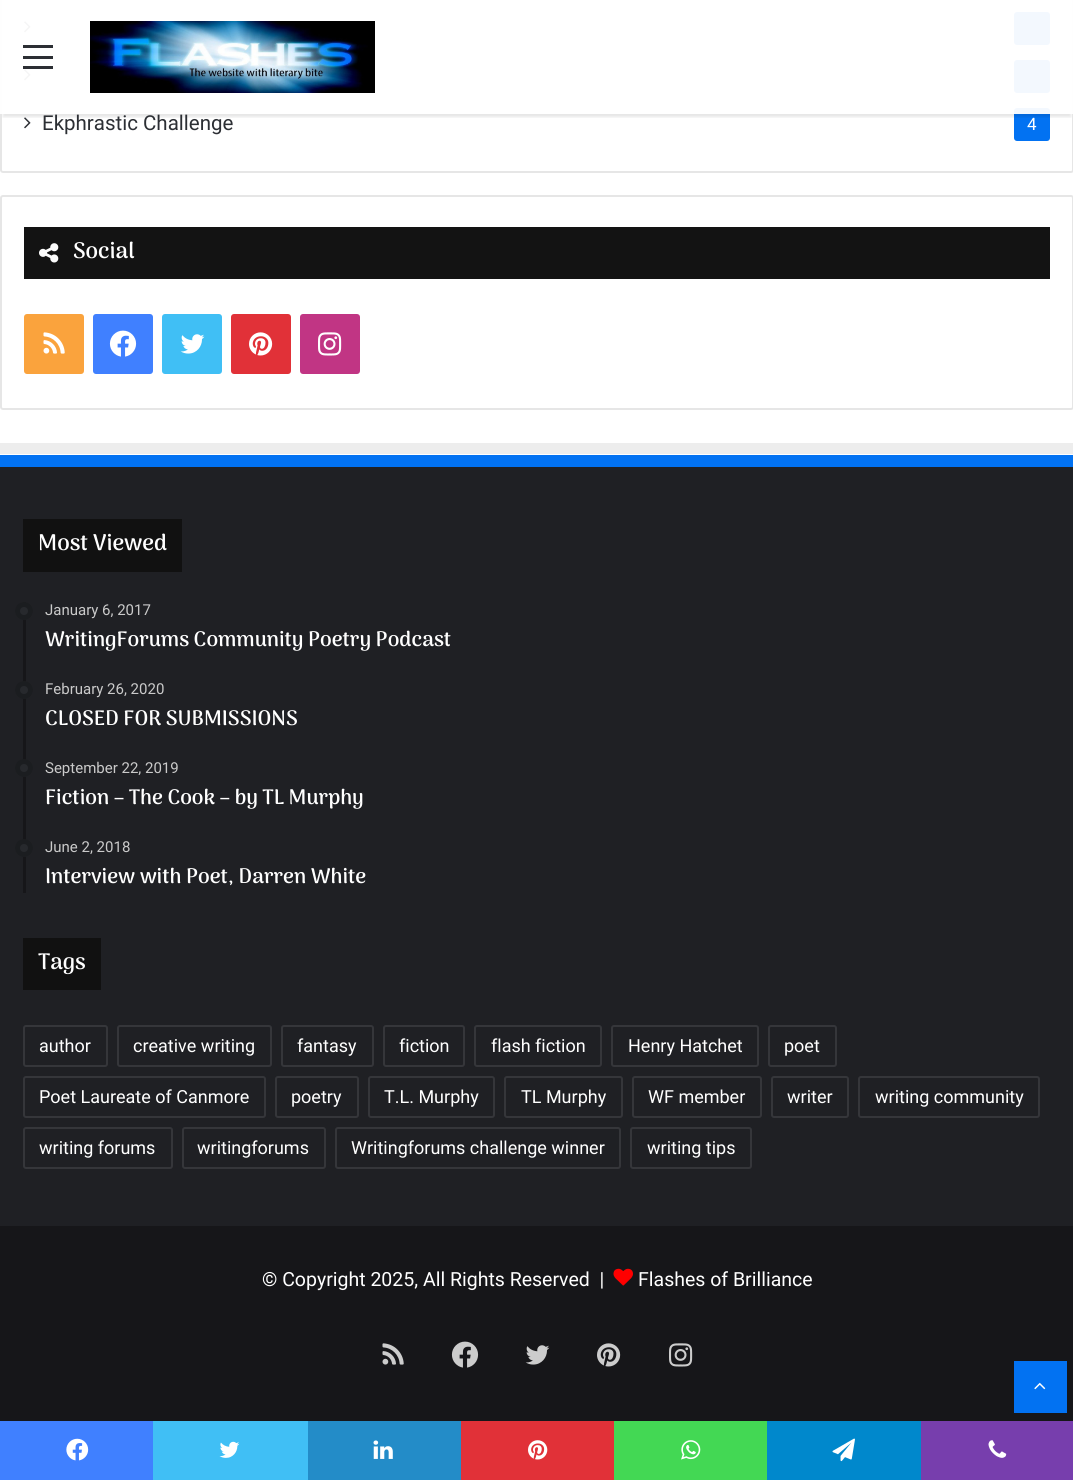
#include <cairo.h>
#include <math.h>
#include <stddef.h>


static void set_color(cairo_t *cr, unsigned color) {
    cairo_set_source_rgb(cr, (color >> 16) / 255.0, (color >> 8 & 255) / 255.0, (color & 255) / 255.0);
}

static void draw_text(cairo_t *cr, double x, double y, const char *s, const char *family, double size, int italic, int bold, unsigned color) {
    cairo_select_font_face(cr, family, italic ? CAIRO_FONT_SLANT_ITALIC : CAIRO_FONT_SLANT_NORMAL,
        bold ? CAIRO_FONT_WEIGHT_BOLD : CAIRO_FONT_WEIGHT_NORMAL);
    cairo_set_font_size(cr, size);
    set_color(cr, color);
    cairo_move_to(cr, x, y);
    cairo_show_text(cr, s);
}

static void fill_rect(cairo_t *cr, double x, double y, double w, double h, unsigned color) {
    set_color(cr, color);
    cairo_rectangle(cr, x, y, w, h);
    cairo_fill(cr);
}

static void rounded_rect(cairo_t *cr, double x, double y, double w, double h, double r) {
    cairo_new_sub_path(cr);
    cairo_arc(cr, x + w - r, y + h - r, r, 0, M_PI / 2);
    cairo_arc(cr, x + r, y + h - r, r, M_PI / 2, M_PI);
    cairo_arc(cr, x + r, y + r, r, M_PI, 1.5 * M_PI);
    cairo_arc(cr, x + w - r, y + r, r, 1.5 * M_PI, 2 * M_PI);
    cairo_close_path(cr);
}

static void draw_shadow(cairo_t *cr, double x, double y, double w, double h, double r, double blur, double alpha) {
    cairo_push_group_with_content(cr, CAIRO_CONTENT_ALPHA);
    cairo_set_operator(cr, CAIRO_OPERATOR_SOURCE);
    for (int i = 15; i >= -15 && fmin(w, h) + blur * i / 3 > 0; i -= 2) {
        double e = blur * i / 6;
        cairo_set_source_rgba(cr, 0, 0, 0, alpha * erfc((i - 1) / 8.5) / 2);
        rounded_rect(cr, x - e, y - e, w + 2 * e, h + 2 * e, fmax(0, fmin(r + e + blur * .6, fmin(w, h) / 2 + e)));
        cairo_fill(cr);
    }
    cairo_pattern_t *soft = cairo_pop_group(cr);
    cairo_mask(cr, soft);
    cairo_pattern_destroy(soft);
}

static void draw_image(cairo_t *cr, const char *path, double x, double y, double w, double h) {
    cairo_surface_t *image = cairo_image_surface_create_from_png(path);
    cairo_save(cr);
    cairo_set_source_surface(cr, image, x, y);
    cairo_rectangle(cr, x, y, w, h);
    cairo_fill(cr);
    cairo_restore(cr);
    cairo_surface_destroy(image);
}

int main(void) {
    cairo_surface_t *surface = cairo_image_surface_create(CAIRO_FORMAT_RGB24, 1073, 1480);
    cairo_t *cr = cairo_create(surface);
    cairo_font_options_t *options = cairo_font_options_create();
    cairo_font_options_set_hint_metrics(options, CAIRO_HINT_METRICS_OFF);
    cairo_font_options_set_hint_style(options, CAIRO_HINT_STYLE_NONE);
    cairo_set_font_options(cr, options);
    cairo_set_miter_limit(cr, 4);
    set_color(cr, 0xFFFFFF);
    cairo_paint(cr);
    rounded_rect(cr, 1, -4, 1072, 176, 2);
    set_color(cr, 0xE6E6E6);
    cairo_stroke(cr);
    draw_image(cr, "assets/img2.png", 24, 21, 7, 12);
    set_color(cr, 0x0272F2);
    rounded_rect(cr, 1014, 12, 36, 33, 3);
    cairo_fill(cr);
    draw_image(cr, "assets/img2.png", 24, 69, 7, 12);
    rounded_rect(cr, 1014, 60, 36, 33, 3);
    cairo_fill(cr);
    draw_image(cr, "assets/img2.png", 24, 117, 7, 12);
    rounded_rect(cr, 1014, 108, 36, 33, 3);
    cairo_fill(cr);
    cairo_save(cr);
    cairo_rectangle(cr, 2, 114, 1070, 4);
    cairo_clip(cr);
    set_color(cr, 0x000000);
    draw_shadow(cr, 3, 9, 1068, 108, 0, 1.5, 0.1);
    cairo_restore(cr);
    cairo_set_source_rgba(cr, 1, 1, 1, 0.95);
    cairo_rectangle(cr, 0, 0, 1073, 114);
    cairo_fill(cr);
    fill_rect(cr, 23, 56, 30, 3, 0x2C2F34);
    fill_rect(cr, 23, 45, 30, 3, 0x2C2F34);
    fill_rect(cr, 23, 66, 30, 3, 0x2C2F34);
    draw_image(cr, "assets/img1.png", 90, 21, 285, 72);
    draw_text(cr, 42, 130, "Ekphrastic Challenge", "Roboto", 20.5, 0, 0, 0x2C2F34);
    draw_text(cr, 1027, 130, "4", "Roboto", 17, 0, 0, 0xFFFFFF);
    rounded_rect(cr, 1, 196, 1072, 213, 2);
    set_color(cr, 0xE6E6E6);
    cairo_stroke(cr);
    fill_rect(cr, 24, 227, 1026, 52, 0x131313);
    draw_image(cr, "assets/img3.png", 39, 243, 20, 20);
    draw_text(cr, 73, 258, "Social", "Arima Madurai", 22.5, 0, 1, 0xFFFFFF);
    set_color(cr, 0xFAA33D);
    rounded_rect(cr, 24, 314, 60, 60, 3);
    cairo_fill(cr);
    draw_image(cr, "assets/img4.png", 43, 332, 22, 22);
    set_color(cr, 0x4080FF);
    rounded_rect(cr, 93, 314, 60, 60, 3);
    cairo_fill(cr);
    draw_image(cr, "assets/img5.png", 109, 330, 28, 27);
    set_color(cr, 0x40BFF5);
    rounded_rect(cr, 162, 314, 60, 60, 3);
    cairo_fill(cr);
    draw_image(cr, "assets/img6.png", 180, 334, 25, 20);
    set_color(cr, 0xE13138);
    rounded_rect(cr, 231, 314, 60, 60, 3);
    cairo_fill(cr);
    draw_image(cr, "assets/img7.png", 249, 332, 24, 24);
    set_color(cr, 0xC13584);
    rounded_rect(cr, 300, 314, 60, 60, 3);
    cairo_fill(cr);
    draw_image(cr, "assets/img8.png", 318, 332, 24, 24);
    fill_rect(cr, 0, 467, 1073, 759, 0x1F2024);
    fill_rect(cr, 0, 443, 1073, 11, 0xEDEDED);
    fill_rect(cr, 0, 455, 1073, 12, 0x0272F2);
    fill_rect(cr, 23, 519, 159, 53, 0x111111);
    draw_text(cr, 38, 550, "Most Viewed", "Arima Madurai", 22.5, 0, 1, 0xFFFFFF);
    fill_rect(cr, 23, 602, 3, 291, 0x161619);
    set_color(cr, 0x27292D);
    cairo_new_path(cr);
    cairo_arc(cr, 24, 611, 9, 0, 2 * M_PI);
    cairo_fill(cr);
    cairo_arc(cr, 24, 611, 6.5, 0, 2 * M_PI);
    cairo_set_source_rgba(cr, 0, 0, 0, 0.3);
    cairo_set_line_width(cr, 5);
    cairo_stroke(cr);
    draw_text(cr, 45, 615, "January 6, 2017", "Roboto", 15, 0, 0, 0xCACACA);
    draw_text(cr, 45, 646, "WritingForums Community Poetry Podcast", "Arima Madurai", 21, 0, 1, 0xFFFFFF);
    set_color(cr, 0x27292D);
    cairo_new_path(cr);
    cairo_arc(cr, 24, 690, 9, 0, 2 * M_PI);
    cairo_fill(cr);
    cairo_arc(cr, 24, 690, 6.5, 0, 2 * M_PI);
    cairo_set_source_rgba(cr, 0, 0, 0, 0.3);
    cairo_stroke(cr);
    draw_text(cr, 45, 694, "February 26, 2020", "Roboto", 15, 0, 0, 0xCACACA);
    draw_text(cr, 45, 725, "CLOSED FOR SUBMISSIONS", "Arima Madurai", 21, 0, 1, 0xFFFFFF);
    set_color(cr, 0x27292D);
    cairo_new_path(cr);
    cairo_arc(cr, 24, 768, 9, 0, 2 * M_PI);
    cairo_fill(cr);
    cairo_arc(cr, 24, 768, 6.5, 0, 2 * M_PI);
    cairo_set_source_rgba(cr, 0, 0, 0, 0.3);
    cairo_stroke(cr);
    draw_text(cr, 45, 773, "September 22, 2019", "Roboto", 15, 0, 0, 0xCACACA);
    draw_text(cr, 45, 804, "Fiction – The Cook – by TL Murphy", "Arima Madurai", 21, 0, 1, 0xFFFFFF);
    set_color(cr, 0x27292D);
    cairo_new_path(cr);
    cairo_arc(cr, 24, 848, 9, 0, 2 * M_PI);
    cairo_fill(cr);
    cairo_arc(cr, 24, 848, 6.5, 0, 2 * M_PI);
    cairo_set_source_rgba(cr, 0, 0, 0, 0.3);
    cairo_stroke(cr);
    draw_text(cr, 45, 852, "June 2, 2018", "Roboto", 15, 0, 0, 0xCACACA);
    draw_text(cr, 45, 883, "Interview with Poet, Darren White", "Arima Madurai", 21, 0, 1, 0xFFFFFF);
    fill_rect(cr, 23, 938, 78, 52, 0x111111);
    draw_text(cr, 38, 969, "Tags", "Arima Madurai", 22.5, 0, 1, 0xFFFFFF);
    rounded_rect(cr, 24, 1026, 83, 40, 2);
    set_color(cr, 0x35363A);
    cairo_set_line_width(cr, 2);
    cairo_stroke(cr);
    draw_text(cr, 39, 1052, "author", "Roboto", 18, 0, 0, 0xFFFFFF);
    rounded_rect(cr, 118, 1026, 153, 40, 2);
    set_color(cr, 0x35363A);
    cairo_stroke(cr);
    draw_text(cr, 133, 1052, "creative writing", "Roboto", 18, 0, 0, 0xFFFFFF);
    rounded_rect(cr, 282, 1026, 91, 40, 2);
    set_color(cr, 0x35363A);
    cairo_stroke(cr);
    draw_text(cr, 297, 1052, "fantasy", "Roboto", 18, 0, 0, 0xFFFFFF);
    rounded_rect(cr, 384, 1026, 80, 40, 2);
    set_color(cr, 0x35363A);
    cairo_stroke(cr);
    draw_text(cr, 399, 1052, "fiction", "Roboto", 18, 0, 0, 0xFFFFFF);
    rounded_rect(cr, 475, 1026, 126, 40, 2);
    set_color(cr, 0x35363A);
    cairo_stroke(cr);
    draw_text(cr, 491, 1052, "flash fiction", "Roboto", 18, 0, 0, 0xFFFFFF);
    rounded_rect(cr, 612, 1026, 146, 40, 2);
    set_color(cr, 0x35363A);
    cairo_stroke(cr);
    draw_text(cr, 628, 1052, "Henry Hatchet", "Roboto", 18, 0, 0, 0xFFFFFF);
    rounded_rect(cr, 769, 1026, 67, 40, 2);
    set_color(cr, 0x35363A);
    cairo_stroke(cr);
    draw_text(cr, 784, 1052, "poet", "Roboto", 18, 0, 0, 0xFFFFFF);
    rounded_rect(cr, 24, 1077, 241, 40, 2);
    set_color(cr, 0x35363A);
    cairo_stroke(cr);
    draw_text(cr, 39, 1103, "Poet Laureate of Canmore", "Roboto", 18, 0, 0, 0xFFFFFF);
    rounded_rect(cr, 276, 1077, 82, 40, 2);
    set_color(cr, 0x35363A);
    cairo_stroke(cr);
    draw_text(cr, 291, 1103, "poetry", "Roboto", 18, 0, 0, 0xFFFFFF);
    rounded_rect(cr, 369, 1077, 125, 40, 2);
    set_color(cr, 0x35363A);
    cairo_stroke(cr);
    draw_text(cr, 384, 1103, "T.L. Murphy", "Roboto", 18, 0, 0, 0xFFFFFF);
    rounded_rect(cr, 505, 1077, 117, 40, 2);
    set_color(cr, 0x35363A);
    cairo_stroke(cr);
    draw_text(cr, 521, 1103, "TL Murphy", "Roboto", 18, 0, 0, 0xFFFFFF);
    rounded_rect(cr, 633, 1077, 128, 40, 2);
    set_color(cr, 0x35363A);
    cairo_stroke(cr);
    draw_text(cr, 648, 1103, "WF member", "Roboto", 18, 0, 0, 0xFFFFFF);
    rounded_rect(cr, 772, 1077, 76, 40, 2);
    set_color(cr, 0x35363A);
    cairo_stroke(cr);
    draw_text(cr, 787, 1103, "writer", "Roboto", 18, 0, 0, 0xFFFFFF);
    rounded_rect(cr, 859, 1077, 180, 40, 2);
    set_color(cr, 0x35363A);
    cairo_stroke(cr);
    draw_text(cr, 875, 1103, "writing community", "Roboto", 18, 0, 0, 0xFFFFFF);
    rounded_rect(cr, 24, 1128, 148, 40, 2);
    set_color(cr, 0x35363A);
    cairo_stroke(cr);
    draw_text(cr, 39, 1154, "writing forums", "Roboto", 18, 0, 0, 0xFFFFFF);
    rounded_rect(cr, 183, 1128, 142, 40, 2);
    set_color(cr, 0x35363A);
    cairo_stroke(cr);
    draw_text(cr, 197, 1154, "writingforums", "Roboto", 18, 0, 0, 0xFFFFFF);
    rounded_rect(cr, 336, 1128, 284, 40, 2);
    set_color(cr, 0x35363A);
    cairo_stroke(cr);
    draw_text(cr, 351, 1154, "Writingforums challenge winner", "Roboto", 18, 0, 0, 0xFFFFFF);
    rounded_rect(cr, 631, 1128, 120, 40, 2);
    set_color(cr, 0x35363A);
    cairo_stroke(cr);
    draw_text(cr, 647, 1154, "writing tips", "Roboto", 18, 0, 0, 0xFFFFFF);
    fill_rect(cr, 0, 1226, 1073, 195, 0x161619);
    draw_text(cr, 262, 1286, "© Copyright 2025, All Rights Reserved  |", "Roboto", 19.5, 0, 0, 0xFFFFFF);
    draw_image(cr, "assets/img9.png", 613, 1268, 20, 18);
    draw_text(cr, 638, 1286, "Flashes of Brilliance", "Roboto", 19.5, 0, 0, 0xFFFFFF);
    draw_image(cr, "assets/img10.png", 382, 1343, 22, 22);
    draw_image(cr, "assets/img11.png", 451, 1341, 28, 27);
    draw_image(cr, "assets/img12.png", 525, 1345, 25, 20);
    draw_image(cr, "assets/img13.png", 597, 1343, 24, 24);
    draw_image(cr, "assets/img14.png", 669, 1343, 24, 24);
    fill_rect(cr, 1014, 1361, 53, 52, 0x0272F2);
    draw_image(cr, "assets/img15.png", 1034, 1382, 12, 8);
    fill_rect(cr, 0, 1421, 153, 59, 0x4080FF);
    draw_image(cr, "assets/img16.png", 66, 1438, 23, 23);
    fill_rect(cr, 153, 1421, 155, 59, 0x40BFF5);
    draw_image(cr, "assets/img17.png", 219, 1441, 21, 17);
    fill_rect(cr, 308, 1421, 153, 59, 0x238CC8);
    draw_image(cr, "assets/img18.png", 373, 1440, 20, 19);
    fill_rect(cr, 461, 1421, 153, 59, 0xE13138);
    draw_image(cr, "assets/img19.png", 528, 1440, 20, 20);
    fill_rect(cr, 614, 1421, 153, 59, 0x43D854);
    draw_image(cr, "assets/img20.png", 681, 1440, 20, 20);
    fill_rect(cr, 767, 1421, 154, 59, 0x0088CC);
    draw_image(cr, "assets/img21.png", 832, 1438, 23, 24);
    fill_rect(cr, 921, 1421, 152, 59, 0x773EAD);
    draw_image(cr, "assets/img22.png", 988, 1440, 19, 18);
    cairo_surface_write_to_png(surface, "output.png");
    cairo_font_options_destroy(options);
    cairo_destroy(cr);
    cairo_surface_destroy(surface);
    return 0;
}
